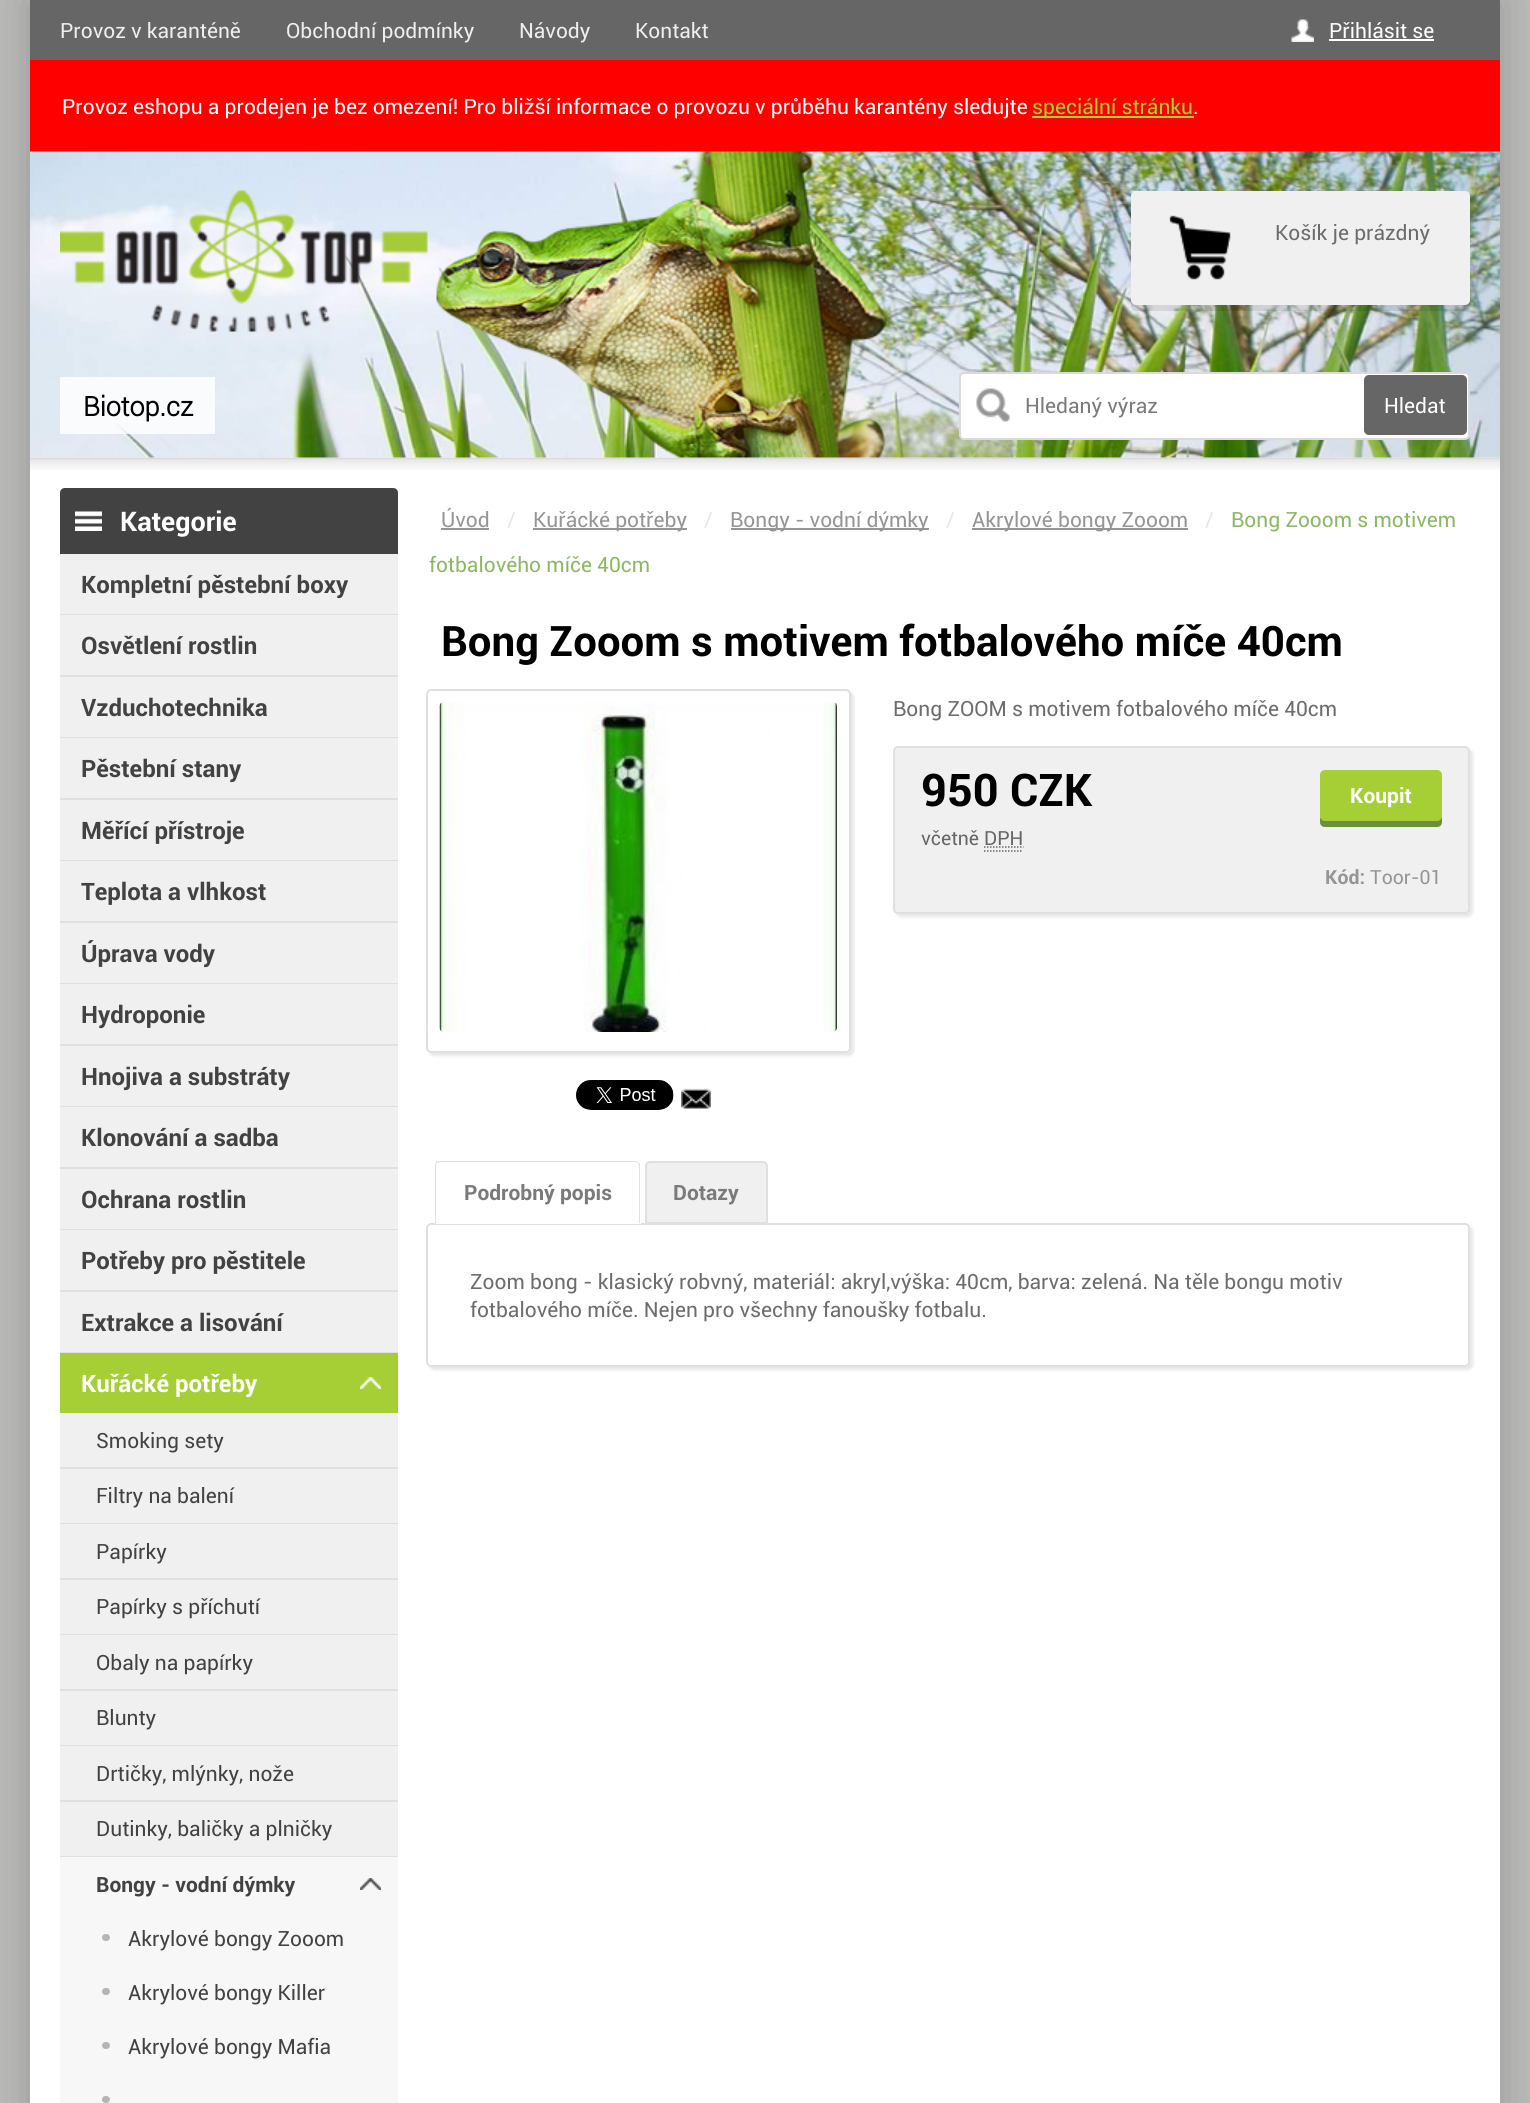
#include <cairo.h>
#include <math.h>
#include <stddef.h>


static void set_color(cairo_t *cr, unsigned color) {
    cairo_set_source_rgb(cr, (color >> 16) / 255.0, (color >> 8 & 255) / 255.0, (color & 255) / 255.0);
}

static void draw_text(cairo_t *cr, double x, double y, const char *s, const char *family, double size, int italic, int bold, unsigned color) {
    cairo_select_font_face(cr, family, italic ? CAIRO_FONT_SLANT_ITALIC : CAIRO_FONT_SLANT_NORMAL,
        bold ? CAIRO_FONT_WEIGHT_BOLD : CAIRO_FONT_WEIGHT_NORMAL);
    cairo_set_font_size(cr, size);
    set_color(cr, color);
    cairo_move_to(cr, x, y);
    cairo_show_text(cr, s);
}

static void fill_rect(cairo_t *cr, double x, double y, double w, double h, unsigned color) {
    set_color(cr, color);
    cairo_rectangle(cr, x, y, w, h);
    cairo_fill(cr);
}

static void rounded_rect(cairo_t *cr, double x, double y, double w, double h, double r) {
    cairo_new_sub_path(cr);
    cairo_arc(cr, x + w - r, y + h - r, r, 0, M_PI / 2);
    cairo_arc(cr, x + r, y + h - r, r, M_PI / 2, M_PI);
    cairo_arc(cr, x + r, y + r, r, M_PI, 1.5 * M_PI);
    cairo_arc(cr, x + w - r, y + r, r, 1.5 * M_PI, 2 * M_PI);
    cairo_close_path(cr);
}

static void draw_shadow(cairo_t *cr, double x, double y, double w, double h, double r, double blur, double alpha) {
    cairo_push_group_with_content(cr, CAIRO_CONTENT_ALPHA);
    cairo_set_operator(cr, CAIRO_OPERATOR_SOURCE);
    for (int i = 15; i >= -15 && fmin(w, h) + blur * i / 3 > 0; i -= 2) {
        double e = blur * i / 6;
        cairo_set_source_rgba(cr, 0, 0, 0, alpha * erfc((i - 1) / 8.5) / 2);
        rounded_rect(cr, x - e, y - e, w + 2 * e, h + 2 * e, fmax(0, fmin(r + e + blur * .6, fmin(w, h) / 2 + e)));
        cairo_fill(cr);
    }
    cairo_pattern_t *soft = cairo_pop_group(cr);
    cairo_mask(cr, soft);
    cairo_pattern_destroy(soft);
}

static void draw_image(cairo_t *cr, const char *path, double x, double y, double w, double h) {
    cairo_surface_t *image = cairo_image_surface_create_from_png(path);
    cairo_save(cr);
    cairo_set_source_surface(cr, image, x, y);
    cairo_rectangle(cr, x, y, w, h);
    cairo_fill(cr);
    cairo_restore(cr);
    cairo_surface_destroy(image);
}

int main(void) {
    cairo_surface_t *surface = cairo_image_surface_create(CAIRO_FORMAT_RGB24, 1530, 2103);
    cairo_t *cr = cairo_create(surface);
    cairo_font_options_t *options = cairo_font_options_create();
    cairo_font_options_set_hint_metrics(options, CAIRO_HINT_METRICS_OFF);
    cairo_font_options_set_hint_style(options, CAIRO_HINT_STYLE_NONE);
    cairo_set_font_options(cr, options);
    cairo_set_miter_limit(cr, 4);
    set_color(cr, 0xBBBBBA);
    cairo_paint(cr);
    set_color(cr, 0x000000);
    draw_shadow(cr, 30, 0, 1470, 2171, 0, 22.5, 0.2);
    fill_rect(cr, 30, 457, 1470, 1646, 0xFFFFFF);
    fill_rect(cr, 30, 0, 1470, 60, 0x666666);
    draw_text(cr, 60, 38, "Provoz v karanténě", "Roboto", 21, 0, 0, 0xEEEEEE);
    draw_text(cr, 286, 38, "Obchodní podmínky", "Roboto", 21, 0, 0, 0xEEEEEE);
    draw_text(cr, 519, 38, "Návody", "Roboto", 21, 0, 0, 0xEEEEEE);
    draw_text(cr, 635, 38, "Kontakt", "Roboto", 21, 0, 0, 0xEEEEEE);
    draw_image(cr, "assets/img1.png", 1291, 19, 23, 23);
    draw_text(cr, 1329, 38, "Přihlásit se", "Roboto", 21, 0, 0, 0xFFFFFF);
    fill_rect(cr, 1329, 39, 105, 2, 0xFFFFFF);
    fill_rect(cr, 30, 60, 1470, 92, 0xFF0000);
    draw_text(cr, 62, 114, "Provoz eshopu a prodejen je bez omezení! Pro bližší informace o provozu v průběhu karantény sledujte", "Roboto", 21, 0, 0, 0xFFFFFF);
    fill_rect(cr, 1032, 116, 162, 2, 0xA6CF35);
    draw_text(cr, 1032, 114, "speciální stránku", "Roboto", 21, 0, 0, 0xA6CF35);
    draw_text(cr, 1193, 114, ".", "Roboto", 21, 0, 0, 0xFFFFFF);
    draw_image(cr, "assets/img6.png", 30, 457, 1470, 13);
    draw_image(cr, "assets/img2.png", 30, 151, 1470, 307);
    draw_image(cr, "assets/img3.png", 60, 190, 368, 142);
    cairo_set_source_rgba(cr, 0.027, 0.027, 0.027, 0.1);
    cairo_new_path(cr);
    cairo_move_to(cr, 1131, 300);
    cairo_line_to(cr, 1131, 306);
    cairo_curve_to(cr, 1131, 309, 1133, 311, 1136, 311);
    cairo_line_to(cr, 1465, 311);
    cairo_curve_to(cr, 1468, 311, 1470, 309, 1470, 306);
    cairo_line_to(cr, 1470, 300);
    cairo_curve_to(cr, 1470, 302, 1468, 304, 1466, 304);
    cairo_line_to(cr, 1136, 304);
    cairo_curve_to(cr, 1133, 304, 1131, 302, 1131, 300);
    cairo_close_path(cr);
    cairo_fill(cr);
    set_color(cr, 0xF0F0F0);
    rounded_rect(cr, 1131, 191, 339, 114, 5);
    cairo_fill(cr);
    draw_image(cr, "assets/img4.png", 1169, 215, 62, 65);
    draw_text(cr, 1275, 240, "Košík je prázdný", "Roboto", 21, 0, 0, 0x6C6C6C);
    cairo_set_source_rgba(cr, 1, 1, 1, 0.8);
    cairo_rectangle(cr, 60, 377, 155, 57);
    cairo_fill(cr);
    draw_text(cr, 83, 416, "Biotop.cz", "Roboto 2", 27, 0, 1, 0x000000);
    set_color(cr, 0xFFFFFF);
    rounded_rect(cr, 960, 373, 509, 66, 4);
    cairo_fill_preserve(cr);
    set_color(cr, 0xDADADA);
    cairo_stroke(cr);
    draw_image(cr, "assets/img5.png", 976, 388, 34, 34);
    draw_text(cr, 1025, 413, "Hledaný výraz", "Roboto", 21, 0, 0, 0x7A7A7A);
    set_color(cr, 0x666666);
    rounded_rect(cr, 1364, 375, 103, 60, 5);
    cairo_fill(cr);
    draw_text(cr, 1384, 413, "Hledat", "Roboto", 21, 0, 0, 0xFFFFFF);
    set_color(cr, 0x424242);
    cairo_new_path(cr);
    cairo_move_to(cr, 65, 488);
    cairo_line_to(cr, 393, 488);
    cairo_curve_to(cr, 396, 488, 398, 490, 398, 493);
    cairo_line_to(cr, 398, 554);
    cairo_line_to(cr, 60, 554);
    cairo_line_to(cr, 60, 493);
    cairo_curve_to(cr, 60, 490, 62, 488, 65, 488);
    cairo_close_path(cr);
    cairo_fill(cr);
    draw_image(cr, "assets/img7.png", 75, 511, 27, 20);
    draw_text(cr, 120, 531, "Kategorie", "Roboto", 27, 0, 1, 0xFFFFFF);
    fill_rect(cr, 60, 614, 338, 1, 0xE0E0E0);
    fill_rect(cr, 60, 554, 338, 60, 0xF0F0F0);
    draw_text(cr, 81, 593, "Kompletní pěstební boxy", "Roboto", 24, 0, 1, 0x424242);
    fill_rect(cr, 60, 675, 338, 2, 0xE0E0E0);
    fill_rect(cr, 60, 615, 338, 60, 0xF0F0F0);
    draw_text(cr, 81, 654, "Osvětlení rostlin", "Roboto", 24, 0, 1, 0x424242);
    fill_rect(cr, 60, 737, 338, 1, 0xE0E0E0);
    fill_rect(cr, 60, 677, 338, 60, 0xF0F0F0);
    draw_text(cr, 81, 716, "Vzduchotechnika", "Roboto", 24, 0, 1, 0x424242);
    fill_rect(cr, 60, 798, 338, 2, 0xE0E0E0);
    fill_rect(cr, 60, 738, 338, 60, 0xF0F0F0);
    draw_text(cr, 81, 777, "Pěstební stany", "Roboto", 24, 0, 1, 0x424242);
    fill_rect(cr, 60, 860, 338, 1, 0xE0E0E0);
    fill_rect(cr, 60, 800, 338, 60, 0xF0F0F0);
    draw_text(cr, 81, 839, "Měřící přístroje", "Roboto", 24, 0, 1, 0x424242);
    fill_rect(cr, 60, 921, 338, 2, 0xE0E0E0);
    fill_rect(cr, 60, 861, 338, 60, 0xF0F0F0);
    draw_text(cr, 81, 900, "Teplota a vlhkost", "Roboto", 24, 0, 1, 0x424242);
    fill_rect(cr, 60, 983, 338, 1, 0xE0E0E0);
    fill_rect(cr, 60, 923, 338, 60, 0xF0F0F0);
    draw_text(cr, 81, 962, "Úprava vody", "Roboto", 24, 0, 1, 0x424242);
    fill_rect(cr, 60, 1044, 338, 2, 0xE0E0E0);
    fill_rect(cr, 60, 984, 338, 60, 0xF0F0F0);
    draw_text(cr, 81, 1023, "Hydroponie", "Roboto", 24, 0, 1, 0x424242);
    fill_rect(cr, 60, 1106, 338, 1, 0xE0E0E0);
    fill_rect(cr, 60, 1046, 338, 60, 0xF0F0F0);
    draw_text(cr, 81, 1085, "Hnojiva a substráty", "Roboto", 24, 0, 1, 0x424242);
    fill_rect(cr, 60, 1167, 338, 2, 0xE0E0E0);
    fill_rect(cr, 60, 1107, 338, 60, 0xF0F0F0);
    draw_text(cr, 81, 1146, "Klonování a sadba", "Roboto", 24, 0, 1, 0x424242);
    fill_rect(cr, 60, 1229, 338, 1, 0xE0E0E0);
    fill_rect(cr, 60, 1169, 338, 60, 0xF0F0F0);
    draw_text(cr, 81, 1208, "Ochrana rostlin", "Roboto", 24, 0, 1, 0x424242);
    fill_rect(cr, 60, 1290, 338, 2, 0xE0E0E0);
    fill_rect(cr, 60, 1230, 338, 60, 0xF0F0F0);
    draw_text(cr, 81, 1269, "Potřeby pro pěstitele", "Roboto", 24, 0, 1, 0x424242);
    fill_rect(cr, 60, 1352, 338, 1, 0xE0E0E0);
    fill_rect(cr, 60, 1292, 338, 60, 0xF0F0F0);
    draw_text(cr, 81, 1331, "Extrakce a lisování", "Roboto", 24, 0, 1, 0x424242);
    fill_rect(cr, 60, 1353, 338, 60, 0xA6CF35);
    draw_image(cr, "assets/img8.png", 360, 1377, 21, 12);
    draw_text(cr, 81, 1392, "Kuřácké potřeby", "Roboto", 24, 0, 1, 0xFFFFFF);
    fill_rect(cr, 60, 1467, 338, 2, 0xE0E0E0);
    fill_rect(cr, 60, 1413, 338, 54, 0xF0F0F0);
    draw_text(cr, 96, 1448, "Smoking sety", "Roboto", 21, 0, 0, 0x424242);
    fill_rect(cr, 60, 1523, 338, 1, 0xE0E0E0);
    fill_rect(cr, 60, 1469, 338, 54, 0xF0F0F0);
    draw_text(cr, 96, 1503, "Filtry na balení", "Roboto", 21, 0, 0, 0x424242);
    fill_rect(cr, 60, 1578, 338, 2, 0xE0E0E0);
    fill_rect(cr, 60, 1524, 338, 54, 0xF0F0F0);
    draw_text(cr, 96, 1559, "Papírky", "Roboto", 21, 0, 0, 0x424242);
    fill_rect(cr, 60, 1634, 338, 1, 0xE0E0E0);
    fill_rect(cr, 60, 1580, 338, 54, 0xF0F0F0);
    draw_text(cr, 96, 1614, "Papírky s příchutí", "Roboto", 21, 0, 0, 0x424242);
    fill_rect(cr, 60, 1689, 338, 2, 0xE0E0E0);
    fill_rect(cr, 60, 1635, 338, 54, 0xF0F0F0);
    draw_text(cr, 96, 1670, "Obaly na papírky", "Roboto", 21, 0, 0, 0x424242);
    fill_rect(cr, 60, 1745, 338, 1, 0xE0E0E0);
    fill_rect(cr, 60, 1691, 338, 54, 0xF0F0F0);
    draw_text(cr, 96, 1725, "Blunty", "Roboto", 21, 0, 0, 0x424242);
    fill_rect(cr, 60, 1800, 338, 2, 0xE0E0E0);
    fill_rect(cr, 60, 1746, 338, 54, 0xF0F0F0);
    draw_text(cr, 96, 1781, "Drtičky, mlýnky, nože", "Roboto", 21, 0, 0, 0x424242);
    fill_rect(cr, 60, 1856, 338, 1, 0xE0E0E0);
    fill_rect(cr, 60, 1802, 338, 54, 0xF0F0F0);
    draw_text(cr, 96, 1836, "Dutinky, baličky a plničky", "Roboto", 21, 0, 0, 0x424242);
    fill_rect(cr, 60, 1857, 338, 246, 0xF7F7F7);
    draw_image(cr, "assets/img9.png", 360, 1878, 21, 12);
    draw_text(cr, 96, 1892, "Bongy - vodní dýmky", "Roboto", 21, 0, 1, 0x424242);
    set_color(cr, 0xB5B5B5);
    rounded_rect(cr, 102, 1934, 8, 7, 3.5);
    cairo_fill(cr);
    draw_text(cr, 128, 1946, "Akrylové bongy Zooom", "Roboto", 21, 0, 0, 0x424242);
    set_color(cr, 0xB5B5B5);
    rounded_rect(cr, 102, 1988, 8, 7, 3.5);
    cairo_fill(cr);
    draw_text(cr, 128, 2000, "Akrylové bongy Killer", "Roboto", 21, 0, 0, 0x424242);
    set_color(cr, 0xB5B5B5);
    rounded_rect(cr, 102, 2042, 8, 7, 3.5);
    cairo_fill(cr);
    draw_text(cr, 128, 2054, "Akrylové bongy Mafia", "Roboto", 21, 0, 0, 0x424242);
    set_color(cr, 0xB5B5B5);
    rounded_rect(cr, 102, 2096, 8, 7, 3.5);
    cairo_fill(cr);
    draw_text(cr, 441, 527, "Úvod", "Roboto", 21, 0, 0, 0x959595);
    fill_rect(cr, 441, 528, 48, 2, 0x959595);
    draw_text(cr, 507, 527, "/", "Roboto", 21, 0, 0, 0xE6E6E6);
    fill_rect(cr, 533, 528, 154, 2, 0x959595);
    draw_text(cr, 533, 527, "Kuřácké potřeby", "Roboto", 21, 0, 0, 0x959595);
    draw_text(cr, 704, 527, "/", "Roboto", 21, 0, 0, 0xE6E6E6);
    fill_rect(cr, 731, 528, 198, 2, 0x959595);
    draw_text(cr, 730, 527, "Bongy - vodní dýmky", "Roboto", 21, 0, 0, 0x959595);
    draw_text(cr, 946, 527, "/", "Roboto", 21, 0, 0, 0xE6E6E6);
    fill_rect(cr, 972, 528, 216, 2, 0x959595);
    draw_text(cr, 972, 527, "Akrylové bongy Zooom", "Roboto", 21, 0, 0, 0x959595);
    draw_text(cr, 1205, 527, "/", "Roboto", 21, 0, 0, 0xE6E6E6);
    draw_text(cr, 1231, 527, "Bong Zooom s motivem", "Roboto", 21, 0, 0, 0x8CB863);
    draw_text(cr, 429, 572, "fotbalového míče 40cm", "Roboto", 21, 0, 0, 0x8CB863);
    draw_text(cr, 441, 656, "Bong Zooom s motivem fotbalového míče 40cm", "Roboto", 42, 0, 1, 0x000000);
    cairo_save(cr);
    cairo_set_fill_rule(cr, CAIRO_FILL_RULE_EVEN_ODD);
    cairo_new_path(cr);
    cairo_move_to(cr, 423, 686);
    cairo_line_to(cr, 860, 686);
    cairo_line_to(cr, 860, 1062);
    cairo_line_to(cr, 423, 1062);
    cairo_close_path(cr);
    cairo_move_to(cr, 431, 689);
    cairo_line_to(cr, 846, 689);
    cairo_curve_to(cr, 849, 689, 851, 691, 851, 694);
    cairo_line_to(cr, 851, 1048);
    cairo_curve_to(cr, 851, 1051, 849, 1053, 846, 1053);
    cairo_line_to(cr, 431, 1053);
    cairo_curve_to(cr, 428, 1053, 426, 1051, 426, 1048);
    cairo_line_to(cr, 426, 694);
    cairo_curve_to(cr, 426, 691, 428, 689, 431, 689);
    cairo_close_path(cr);
    cairo_clip(cr);
    set_color(cr, 0x070707);
    draw_shadow(cr, 429, 692, 425, 364, 5, 1.5, 0.1);
    cairo_restore(cr);
    rounded_rect(cr, 427, 690, 423, 362, 4);
    set_color(cr, 0xE0E0E0);
    cairo_stroke(cr);
    draw_image(cr, "assets/img10.png", 439, 702, 398, 330);
    draw_image(cr, "assets/img11.png", 576, 1080, 98, 30);
    draw_image(cr, "assets/img12.png", 681, 1088, 30, 21);
    draw_text(cr, 893, 716, "Bong ZOOM s motivem fotbalového míče 40cm", "Roboto", 21, 0, 0, 0x6C6C6C);
    set_color(cr, 0x070707);
    draw_shadow(cr, 896, 749, 577, 168, 5, 1.5, 0.1);
    set_color(cr, 0xF0F0F0);
    rounded_rect(cr, 894, 747, 575, 166, 4);
    cairo_fill_preserve(cr);
    set_color(cr, 0xE0E0E0);
    cairo_stroke(cr);
    draw_text(cr, 921, 806, "950 CZK", "Roboto", 45, 0, 1, 0x000000);
    draw_text(cr, 921, 845, "včetně DPH", "Roboto", 19.5, 0, 0, 0x666666);
    cairo_new_path(cr);
    cairo_move_to(cr, 984, 851);
    cairo_line_to(cr, 1023, 851);
    cairo_move_to(cr, 984, 847);
    cairo_line_to(cr, 1023.5, 847);
    cairo_set_line_width(cr, 1.5);
    cairo_set_dash(cr, (double[]){1.5, 1.5}, 2, 0);
    cairo_stroke(cr);
    set_color(cr, 0x6A903B);
    cairo_new_path(cr);
    cairo_move_to(cr, 1320, 816);
    cairo_line_to(cr, 1320, 822);
    cairo_curve_to(cr, 1320, 825, 1322, 827, 1325, 827);
    cairo_line_to(cr, 1437, 827);
    cairo_curve_to(cr, 1440, 827, 1442, 825, 1442, 822);
    cairo_line_to(cr, 1442, 781);
    cairo_line_to(cr, 1442, 779);
    cairo_line_to(cr, 1442, 816);
    cairo_curve_to(cr, 1442, 818, 1439, 820, 1437, 820);
    cairo_line_to(cr, 1324, 820);
    cairo_curve_to(cr, 1322, 820, 1320, 818, 1320, 816);
    cairo_close_path(cr);
    cairo_fill(cr);
    set_color(cr, 0xA6CF35);
    rounded_rect(cr, 1320, 770, 122, 51, 5);
    cairo_fill(cr);
    draw_text(cr, 1350, 803, "Koupit", "Roboto", 21, 0, 1, 0xFFFFFF);
    draw_text(cr, 1325, 884, "Kód:", "Roboto", 19.5, 0, 1, 0x959595);
    draw_text(cr, 1370, 884, "Toor-01", "Roboto", 19.5, 0, 0, 0x959595);
    cairo_save(cr);
    cairo_set_fill_rule(cr, CAIRO_FILL_RULE_EVEN_ODD);
    cairo_new_path(cr);
    cairo_move_to(cr, 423, 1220);
    cairo_line_to(cr, 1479, 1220);
    cairo_line_to(cr, 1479, 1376);
    cairo_line_to(cr, 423, 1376);
    cairo_close_path(cr);
    cairo_move_to(cr, 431, 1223);
    cairo_line_to(cr, 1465, 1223);
    cairo_curve_to(cr, 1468, 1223, 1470, 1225, 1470, 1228);
    cairo_line_to(cr, 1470, 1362);
    cairo_curve_to(cr, 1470, 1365, 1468, 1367, 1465, 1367);
    cairo_line_to(cr, 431, 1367);
    cairo_curve_to(cr, 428, 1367, 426, 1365, 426, 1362);
    cairo_line_to(cr, 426, 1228);
    cairo_curve_to(cr, 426, 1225, 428, 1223, 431, 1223);
    cairo_close_path(cr);
    cairo_clip(cr);
    set_color(cr, 0x070707);
    draw_shadow(cr, 429, 1226, 1044, 144, 5, 1.5, 0.1);
    cairo_restore(cr);
    rounded_rect(cr, 427, 1224, 1042, 142, 4);
    set_color(cr, 0xE0E0E0);
    cairo_set_line_width(cr, 2);
    cairo_set_dash(cr, NULL, 0, 0);
    cairo_stroke(cr);
    set_color(cr, 0xFFFFFF);
    cairo_new_path(cr);
    cairo_move_to(cr, 440, 1161);
    cairo_line_to(cr, 636, 1161);
    cairo_curve_to(cr, 639, 1161, 641, 1163, 641, 1166);
    cairo_line_to(cr, 641, 1224);
    cairo_line_to(cr, 435, 1224);
    cairo_line_to(cr, 435, 1166);
    cairo_curve_to(cr, 435, 1163, 437, 1161, 440, 1161);
    cairo_close_path(cr);
    cairo_fill(cr);
    set_color(cr, 0xE0E0E0);
    cairo_new_path(cr);
    cairo_move_to(cr, 440, 1161);
    cairo_curve_to(cr, 438, 1161, 437, 1162, 436, 1162);
    cairo_line_to(cr, 437, 1163);
    cairo_line_to(cr, 440, 1162);
    cairo_line_to(cr, 637, 1162);
    cairo_line_to(cr, 638, 1163);
    cairo_line_to(cr, 639, 1163);
    cairo_curve_to(cr, 638, 1162, 637, 1161, 636, 1161);
    cairo_close_path(cr);
    cairo_fill(cr);
    cairo_new_path(cr);
    cairo_move_to(cr, 639, 1163);
    cairo_curve_to(cr, 640, 1163, 640, 1165, 640, 1166);
    cairo_line_to(cr, 640, 1224);
    cairo_line_to(cr, 638, 1222);
    cairo_line_to(cr, 639, 1222);
    cairo_line_to(cr, 639, 1166);
    cairo_line_to(cr, 638, 1163);
    cairo_close_path(cr);
    cairo_fill(cr);
    set_color(cr, 0xFFFFFF);
    cairo_new_path(cr);
    cairo_move_to(cr, 640, 1224);
    cairo_line_to(cr, 638, 1222);
    cairo_line_to(cr, 437, 1222);
    cairo_line_to(cr, 435, 1224);
    cairo_close_path(cr);
    cairo_fill(cr);
    set_color(cr, 0xE0E0E0);
    cairo_new_path(cr);
    cairo_move_to(cr, 435, 1224);
    cairo_line_to(cr, 437, 1222);
    cairo_line_to(cr, 436, 1222);
    cairo_line_to(cr, 436, 1166);
    cairo_line_to(cr, 437, 1163);
    cairo_line_to(cr, 436, 1162);
    cairo_curve_to(cr, 436, 1163, 435, 1164, 435, 1166);
    cairo_close_path(cr);
    cairo_fill(cr);
    draw_text(cr, 464, 1200, "Podrobný popis", "Roboto", 21, 0, 1, 0x7A7A7A);
    set_color(cr, 0xF0F0F0);
    cairo_new_path(cr);
    cairo_move_to(cr, 650, 1162);
    cairo_line_to(cr, 763, 1162);
    cairo_curve_to(cr, 765, 1162, 767, 1164, 767, 1166);
    cairo_line_to(cr, 767, 1223);
    cairo_line_to(cr, 646, 1223);
    cairo_line_to(cr, 646, 1166);
    cairo_curve_to(cr, 646, 1164, 648, 1162, 650, 1162);
    cairo_close_path(cr);
    cairo_fill_preserve(cr);
    set_color(cr, 0xE0E0E0);
    cairo_stroke(cr);
    draw_text(cr, 673, 1200, "Dotazy", "Roboto", 21, 0, 1, 0x7A7A7A);
    draw_text(cr, 470, 1289, "Zoom bong - klasický robvný, materiál: akryl,výška: 40cm, barva: zelená. Na těle bongu motiv", "Roboto", 21, 0, 0, 0x6C6C6C);
    draw_text(cr, 470, 1317, "fotbalového míče. Nejen pro všechny fanoušky fotbalu.", "Roboto", 21, 0, 0, 0x6C6C6C);
    cairo_surface_write_to_png(surface, "output.png");
    cairo_font_options_destroy(options);
    cairo_destroy(cr);
    cairo_surface_destroy(surface);
    return 0;
}
